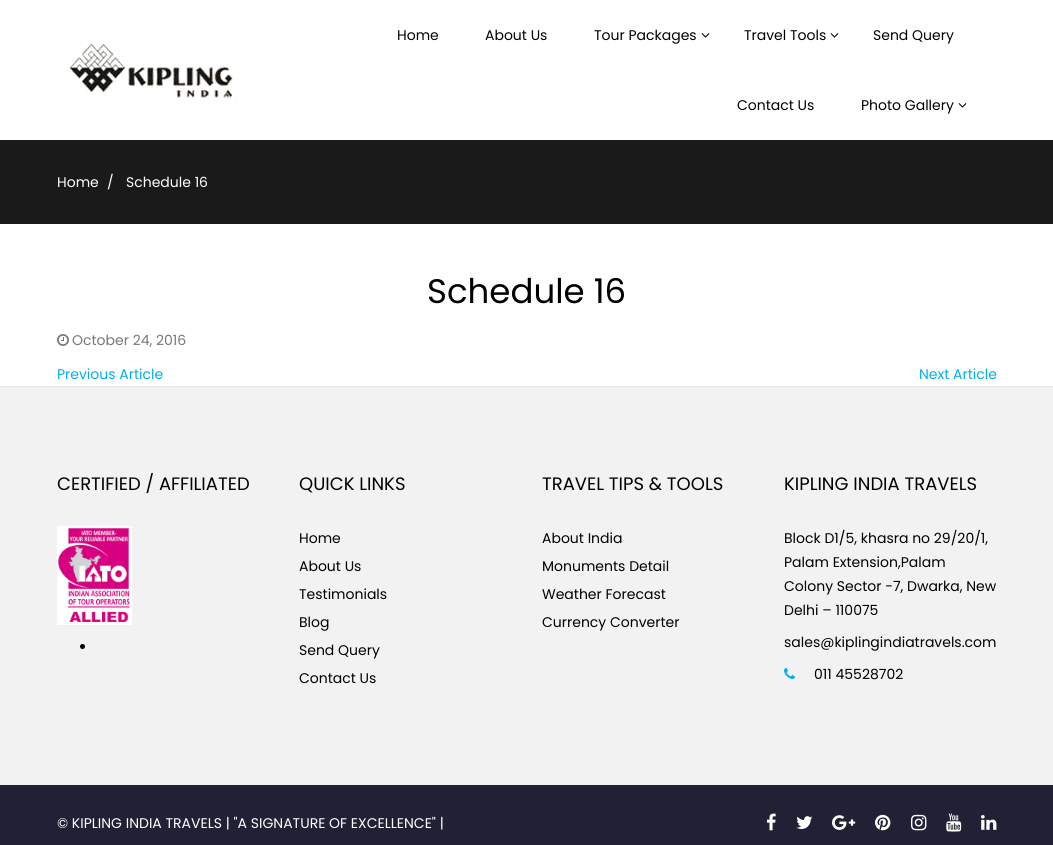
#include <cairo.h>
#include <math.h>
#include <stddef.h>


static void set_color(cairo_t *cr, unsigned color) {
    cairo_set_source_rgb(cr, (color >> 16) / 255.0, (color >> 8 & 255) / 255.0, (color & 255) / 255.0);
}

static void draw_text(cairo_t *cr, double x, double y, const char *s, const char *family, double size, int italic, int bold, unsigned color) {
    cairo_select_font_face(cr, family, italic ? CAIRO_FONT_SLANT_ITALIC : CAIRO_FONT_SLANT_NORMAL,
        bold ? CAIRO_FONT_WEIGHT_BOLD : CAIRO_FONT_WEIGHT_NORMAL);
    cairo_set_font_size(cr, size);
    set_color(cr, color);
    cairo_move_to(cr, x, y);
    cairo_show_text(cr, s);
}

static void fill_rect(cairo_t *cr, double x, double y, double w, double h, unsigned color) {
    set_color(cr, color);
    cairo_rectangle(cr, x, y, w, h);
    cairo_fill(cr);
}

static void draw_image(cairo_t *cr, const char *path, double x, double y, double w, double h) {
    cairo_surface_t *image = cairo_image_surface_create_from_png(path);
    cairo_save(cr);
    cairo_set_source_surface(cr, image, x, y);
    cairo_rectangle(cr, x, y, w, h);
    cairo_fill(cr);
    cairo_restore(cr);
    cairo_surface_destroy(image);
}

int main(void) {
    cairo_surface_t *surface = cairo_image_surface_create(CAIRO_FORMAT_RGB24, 1053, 845);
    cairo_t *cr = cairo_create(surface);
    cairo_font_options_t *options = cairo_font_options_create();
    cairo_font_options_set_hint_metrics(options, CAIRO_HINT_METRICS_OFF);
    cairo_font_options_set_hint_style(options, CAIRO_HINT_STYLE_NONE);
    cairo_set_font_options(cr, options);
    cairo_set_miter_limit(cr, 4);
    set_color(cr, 0xFFFFFF);
    cairo_paint(cr);
    draw_image(cr, "assets/img1.png", 68, 44, 169, 57);
    draw_text(cr, 397, 40, "Home", "Poppins", 14, 0, 0, 0x000000);
    draw_text(cr, 485, 40, "About Us", "Poppins", 14, 0, 0, 0x000000);
    draw_text(cr, 594, 40, "Tour Packages", "Poppins", 14, 0, 0, 0x000000);
    draw_image(cr, "assets/img2.png", 701, 33, 9, 5);
    draw_text(cr, 744, 40, "Travel Tools", "Poppins", 14, 0, 0, 0x000000);
    draw_image(cr, "assets/img2.png", 830, 33, 9, 5);
    draw_text(cr, 873, 40, "Send Query", "Poppins", 14, 0, 0, 0x000000);
    draw_text(cr, 737, 110, "Contact Us", "Poppins", 14, 0, 0, 0x000000);
    draw_text(cr, 861, 110, "Photo Gallery", "Poppins", 14, 0, 0, 0x000000);
    draw_image(cr, "assets/img2.png", 958, 103, 9, 5);
    fill_rect(cr, 0, 140, 1053, 84, 0x1A1A1A);
    draw_text(cr, 57, 187, "Home", "Poppins", 14, 0, 0, 0xFFFFFF);
    draw_text(cr, 107, 187, "/", "Poppins", 14, 0, 0, 0xFFFFFF);
    draw_text(cr, 126, 187, "Schedule 16", "Poppins", 14, 0, 0, 0xFFFFFF);
    draw_text(cr, 427, 303, "Schedule 16", "Poppins", 34, 0, 0, 0x000000);
    draw_image(cr, "assets/img3.png", 57, 334, 12, 12);
    draw_text(cr, 72, 345, "October 24, 2016", "Poppins", 14, 0, 0, 0x777777);
    draw_text(cr, 57, 379, "Previous Article", "Poppins", 14, 0, 0, 0x00AEEF);
    draw_text(cr, 919, 379, "Next Article", "Poppins", 14, 0, 0, 0x00AEEF);
    fill_rect(cr, 0, 387, 1053, 398, 0xF2F2F2);
    fill_rect(cr, 0, 386, 1053, 1, 0xE5E5E5);
    draw_text(cr, 57, 490, "CERTIFIED / AFFILIATED", "Poppins", 18, 0, 0, 0x000000);
    draw_image(cr, "assets/img4.png", 57, 526, 75, 99);
    cairo_arc(cr, 82.5, 646.5, 2.5, 0, 2 * M_PI);
    cairo_fill(cr);
    draw_text(cr, 299, 490, "QUICK LINKS", "Poppins", 18, 0, 0, 0x000000);
    draw_text(cr, 299, 543, "Home", "Poppins", 14, 0, 0, 0x000000);
    draw_text(cr, 299, 571, "About Us", "Poppins", 14, 0, 0, 0x000000);
    draw_text(cr, 299, 599, "Testimonials", "Poppins", 14, 0, 0, 0x000000);
    draw_text(cr, 299, 627, "Blog", "Poppins", 14, 0, 0, 0x000000);
    draw_text(cr, 299, 655, "Send Query", "Poppins", 14, 0, 0, 0x000000);
    draw_text(cr, 299, 683, "Contact Us", "Poppins", 14, 0, 0, 0x000000);
    draw_text(cr, 542, 490, "TRAVEL TIPS & TOOLS", "Poppins", 18, 0, 0, 0x000000);
    draw_text(cr, 542, 543, "About India", "Poppins", 14, 0, 0, 0x000000);
    draw_text(cr, 542, 571, "Monuments Detail", "Poppins", 14, 0, 0, 0x000000);
    draw_text(cr, 542, 599, "Weather Forecast", "Poppins", 14, 0, 0, 0x000000);
    draw_text(cr, 542, 627, "Currency Converter", "Poppins", 14, 0, 0, 0x000000);
    draw_text(cr, 784, 490, "KIPLING INDIA TRAVELS", "Poppins", 18, 0, 0, 0x000000);
    draw_text(cr, 784, 543, "Block D1/5, khasra no 29/20/1,", "Poppins", 14, 0, 0, 0x000000);
    draw_text(cr, 784, 567, "Palam Extension,Palam", "Poppins", 14, 0, 0, 0x000000);
    draw_text(cr, 784, 591, "Colony Sector -7, Dwarka, New", "Poppins", 14, 0, 0, 0x000000);
    draw_text(cr, 784, 615, "Delhi – 110075", "Poppins", 14, 0, 0, 0x000000);
    draw_text(cr, 784, 647, "sales@kiplingindiatravels.com", "Poppins", 14, 0, 0, 0x000000);
    draw_image(cr, "assets/img5.png", 784, 668, 11, 11);
    draw_text(cr, 814, 679, "011 45528702", "Poppins", 14, 0, 0, 0x000000);
    fill_rect(cr, 0, 785, 1053, 60, 0x202134);
    draw_text(cr, 57, 828, "© KIPLING INDIA TRAVELS | \"A SIGNATURE OF EXCELLENCE\" |", "Poppins", 14, 0, 0, 0xFFFFFF);
    draw_image(cr, "assets/img6.png", 766, 813, 10, 18);
    draw_image(cr, "assets/img7.png", 796, 816, 17, 13);
    draw_image(cr, "assets/img8.png", 832, 815, 24, 15);
    draw_image(cr, "assets/img9.png", 875, 814, 16, 17);
    draw_image(cr, "assets/img10.png", 911, 814, 16, 17);
    draw_image(cr, "assets/img11.png", 946, 813, 16, 19);
    draw_image(cr, "assets/img12.png", 981, 815, 16, 15);
    cairo_surface_write_to_png(surface, "output.png");
    cairo_font_options_destroy(options);
    cairo_destroy(cr);
    cairo_surface_destroy(surface);
    return 0;
}
